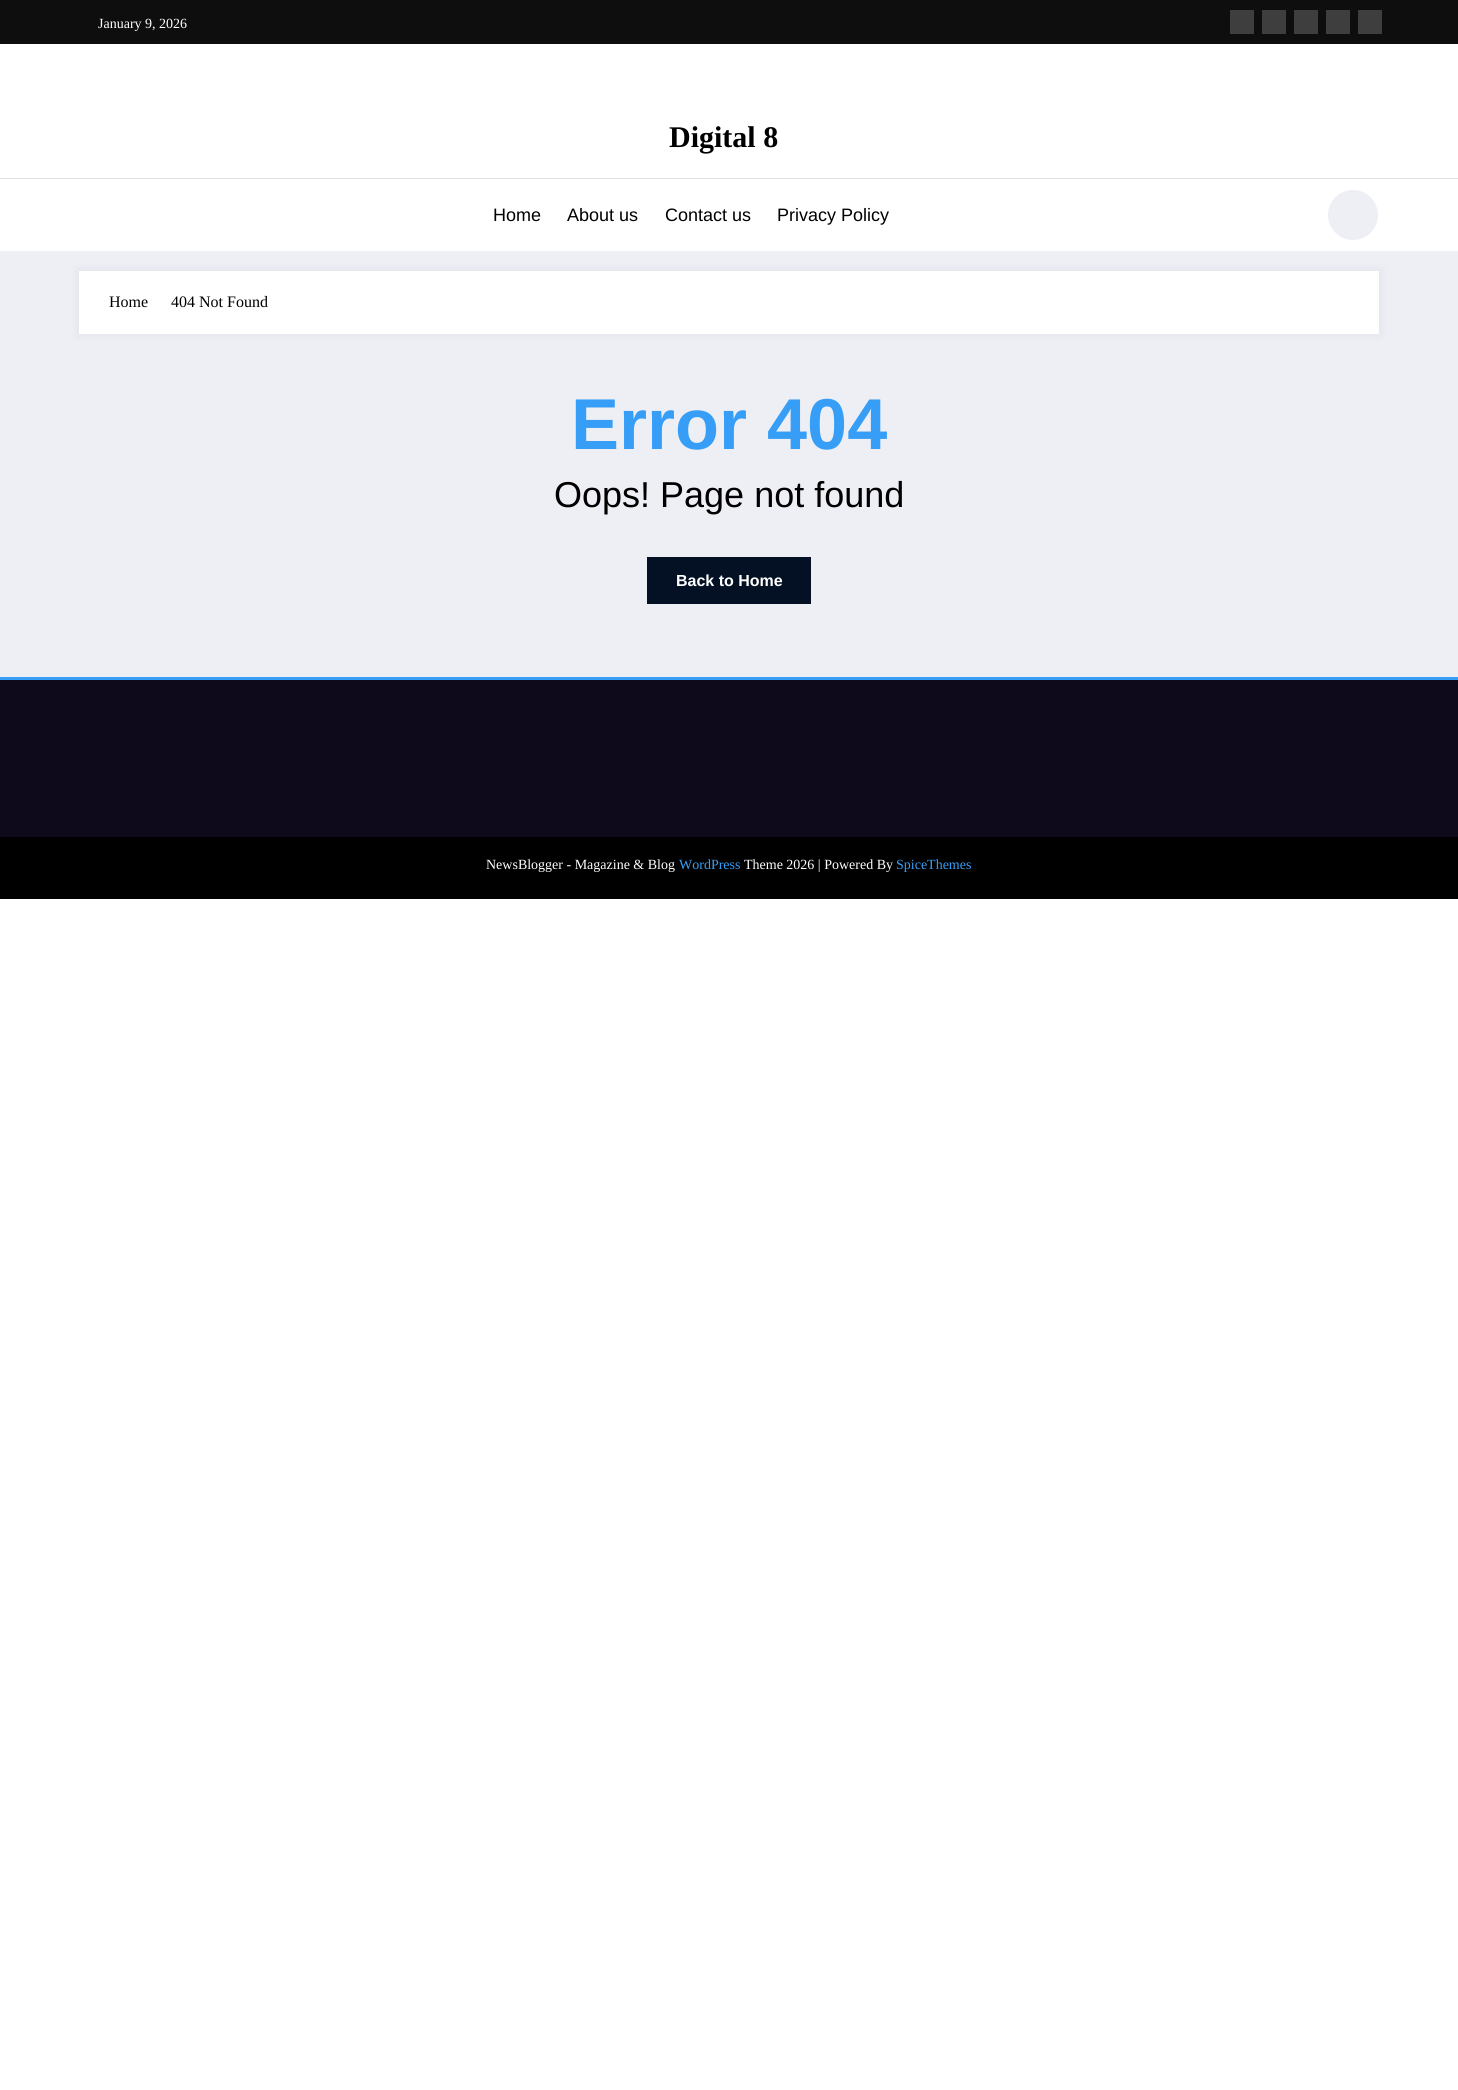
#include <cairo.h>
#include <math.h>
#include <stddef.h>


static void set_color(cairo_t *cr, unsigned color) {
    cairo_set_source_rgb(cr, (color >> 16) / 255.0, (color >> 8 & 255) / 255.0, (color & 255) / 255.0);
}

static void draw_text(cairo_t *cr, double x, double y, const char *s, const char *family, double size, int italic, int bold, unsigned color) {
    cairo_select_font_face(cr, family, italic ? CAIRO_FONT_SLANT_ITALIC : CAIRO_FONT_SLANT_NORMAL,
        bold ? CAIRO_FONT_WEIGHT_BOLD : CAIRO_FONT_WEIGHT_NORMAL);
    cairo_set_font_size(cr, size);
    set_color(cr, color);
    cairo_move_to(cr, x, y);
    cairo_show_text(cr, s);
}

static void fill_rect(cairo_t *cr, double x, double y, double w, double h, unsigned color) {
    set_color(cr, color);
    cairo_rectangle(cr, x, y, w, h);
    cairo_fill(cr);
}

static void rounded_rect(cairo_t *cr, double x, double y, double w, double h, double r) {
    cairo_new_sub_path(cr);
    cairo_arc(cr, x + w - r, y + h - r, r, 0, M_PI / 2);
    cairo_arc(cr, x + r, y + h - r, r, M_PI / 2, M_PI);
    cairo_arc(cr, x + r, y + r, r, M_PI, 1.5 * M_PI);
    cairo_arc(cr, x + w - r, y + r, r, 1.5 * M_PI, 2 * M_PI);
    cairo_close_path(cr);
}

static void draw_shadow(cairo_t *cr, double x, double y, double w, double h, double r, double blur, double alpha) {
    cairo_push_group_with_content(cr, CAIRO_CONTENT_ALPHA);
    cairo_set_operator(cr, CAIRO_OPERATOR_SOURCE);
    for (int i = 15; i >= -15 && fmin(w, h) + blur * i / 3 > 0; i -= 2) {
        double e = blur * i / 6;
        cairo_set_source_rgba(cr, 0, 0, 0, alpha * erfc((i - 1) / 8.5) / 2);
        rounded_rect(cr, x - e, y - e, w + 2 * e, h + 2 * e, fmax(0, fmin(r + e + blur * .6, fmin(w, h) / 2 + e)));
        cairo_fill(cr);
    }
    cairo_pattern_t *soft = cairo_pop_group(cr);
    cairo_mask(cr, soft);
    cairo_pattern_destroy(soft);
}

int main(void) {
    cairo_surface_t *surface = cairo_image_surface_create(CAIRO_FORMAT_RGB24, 1458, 2090);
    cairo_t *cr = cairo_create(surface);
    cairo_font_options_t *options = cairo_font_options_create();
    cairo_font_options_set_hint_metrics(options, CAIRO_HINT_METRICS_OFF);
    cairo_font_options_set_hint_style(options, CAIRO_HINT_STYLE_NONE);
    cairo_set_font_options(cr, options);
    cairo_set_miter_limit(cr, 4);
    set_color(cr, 0xFFFFFF);
    cairo_paint(cr);
    fill_rect(cr, 0, 251, 1458, 426, 0xEEEEF5);
    fill_rect(cr, 0, 0, 1458, 44, 0x0E0E0E);
    draw_text(cr, 98, 28, "January 9, 2026", "Liberation Serif", 14, 0, 0, 0xFFFFFF);
    fill_rect(cr, 1230, 10, 24, 24, 0x3E3E3E);
    fill_rect(cr, 1262, 10, 24, 24, 0x3E3E3E);
    fill_rect(cr, 1294, 10, 24, 24, 0x3E3E3E);
    fill_rect(cr, 1326, 10, 24, 24, 0x3E3E3E);
    fill_rect(cr, 1358, 10, 24, 24, 0x3E3E3E);
    draw_text(cr, 669, 147, "Digital 8", "Liberation Serif", 30, 0, 1, 0x000000);
    fill_rect(cr, 0, 178, 1458, 1, 0xE1E1E1);
    draw_text(cr, 493, 221, "Home", "Liberation Sans", 18, 0, 0, 0x000000);
    draw_text(cr, 567, 221, "About us", "Liberation Sans", 18, 0, 0, 0x000000);
    draw_text(cr, 665, 221, "Contact us", "Liberation Sans", 18, 0, 0, 0x000000);
    draw_text(cr, 777, 221, "Privacy Policy", "Liberation Sans", 18, 0, 0, 0x000000);
    set_color(cr, 0xEEEEF5);
    cairo_new_path(cr);
    cairo_arc(cr, 1353, 215, 25, 0, 2 * M_PI);
    cairo_fill(cr);
    set_color(cr, 0x171723);
    draw_shadow(cr, 77, 269, 1304, 67, 0, 4, 0.05);
    fill_rect(cr, 79, 271, 1300, 63, 0xFFFFFF);
    draw_text(cr, 109, 307, "Home", "Liberation Serif", 16, 0, 0, 0x000000);
    draw_text(cr, 171, 307, "404 Not Found", "Liberation Serif", 16, 0, 0, 0x000000);
    draw_text(cr, 571, 449, "Error 404", "Liberation Sans", 72, 0, 1, 0x369EF6);
    draw_text(cr, 554, 507, "Oops! Page not found", "Liberation Sans", 36, 0, 0, 0x000000);
    fill_rect(cr, 647, 557, 164, 47, 0x041124);
    draw_text(cr, 676, 586, "Back to Home", "Liberation Sans", 16, 0, 1, 0xFFFFFF);
    fill_rect(cr, 0, 677, 1458, 3, 0x369EF6);
    fill_rect(cr, 0, 680, 1458, 157, 0x0E0A1C);
    fill_rect(cr, 0, 837, 1458, 62, 0x000000);
    draw_text(cr, 486, 869, "NewsBlogger - Magazine & Blog", "Liberation Serif", 14, 0, 0, 0xFFFFFF);
    draw_text(cr, 679, 869, "WordPress", "Liberation Serif", 14, 0, 0, 0x369EF6);
    draw_text(cr, 744, 869, "Theme 2026 | Powered By", "Liberation Serif", 14, 0, 0, 0xFFFFFF);
    draw_text(cr, 896, 869, "SpiceThemes", "Liberation Serif", 14, 0, 0, 0x369EF6);
    cairo_surface_write_to_png(surface, "output.png");
    cairo_font_options_destroy(options);
    cairo_destroy(cr);
    cairo_surface_destroy(surface);
    return 0;
}
